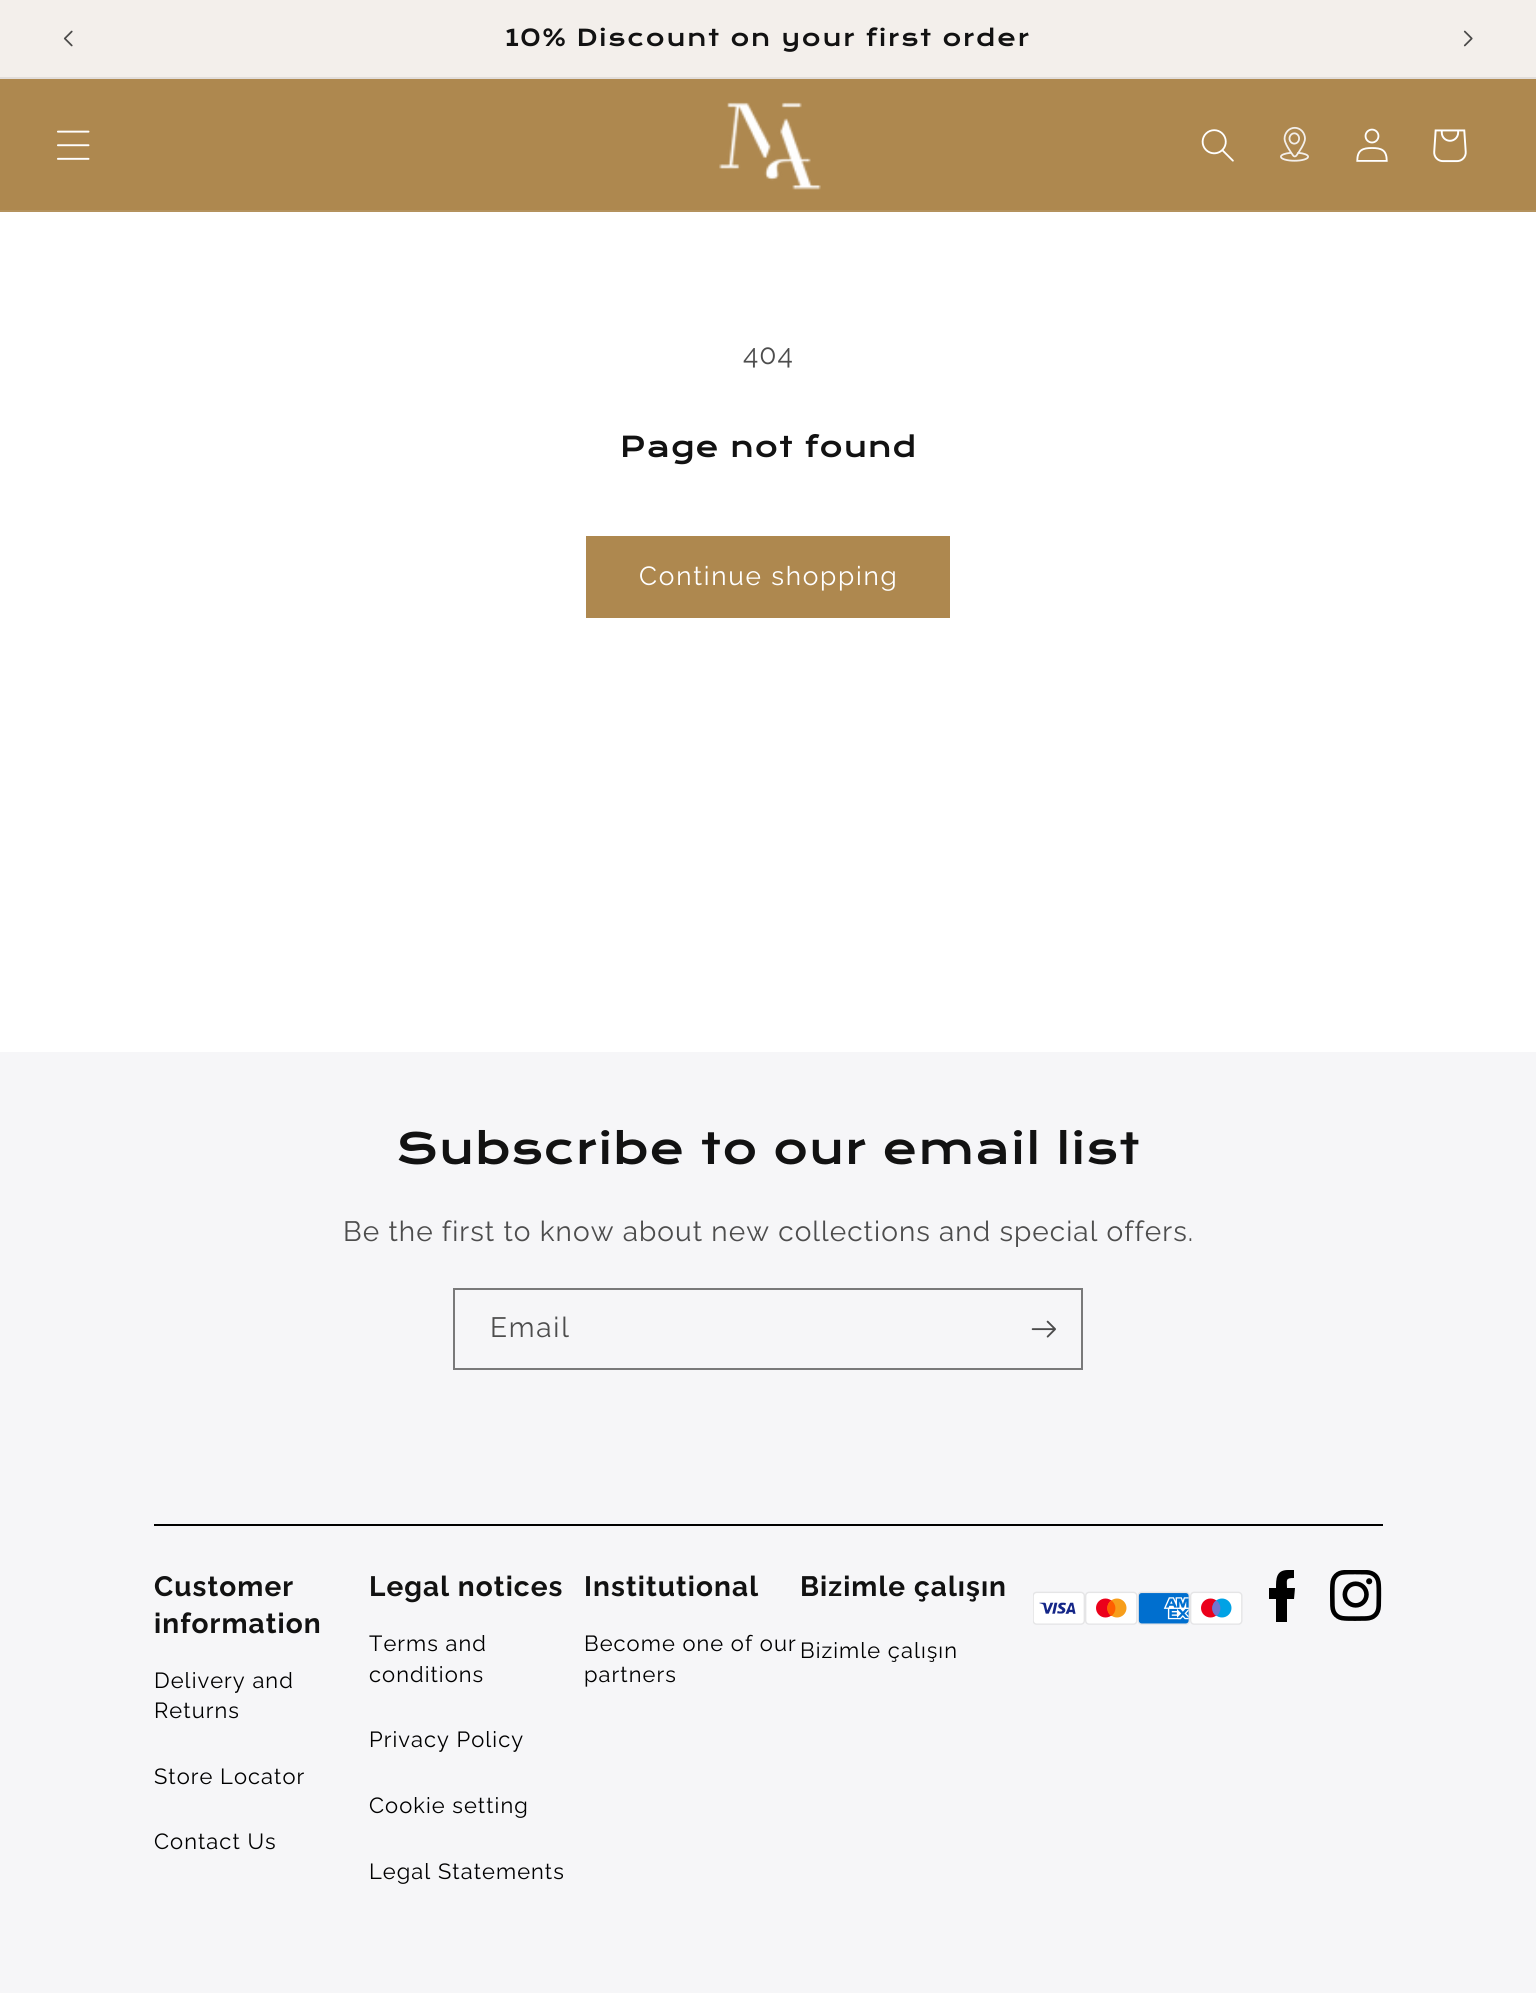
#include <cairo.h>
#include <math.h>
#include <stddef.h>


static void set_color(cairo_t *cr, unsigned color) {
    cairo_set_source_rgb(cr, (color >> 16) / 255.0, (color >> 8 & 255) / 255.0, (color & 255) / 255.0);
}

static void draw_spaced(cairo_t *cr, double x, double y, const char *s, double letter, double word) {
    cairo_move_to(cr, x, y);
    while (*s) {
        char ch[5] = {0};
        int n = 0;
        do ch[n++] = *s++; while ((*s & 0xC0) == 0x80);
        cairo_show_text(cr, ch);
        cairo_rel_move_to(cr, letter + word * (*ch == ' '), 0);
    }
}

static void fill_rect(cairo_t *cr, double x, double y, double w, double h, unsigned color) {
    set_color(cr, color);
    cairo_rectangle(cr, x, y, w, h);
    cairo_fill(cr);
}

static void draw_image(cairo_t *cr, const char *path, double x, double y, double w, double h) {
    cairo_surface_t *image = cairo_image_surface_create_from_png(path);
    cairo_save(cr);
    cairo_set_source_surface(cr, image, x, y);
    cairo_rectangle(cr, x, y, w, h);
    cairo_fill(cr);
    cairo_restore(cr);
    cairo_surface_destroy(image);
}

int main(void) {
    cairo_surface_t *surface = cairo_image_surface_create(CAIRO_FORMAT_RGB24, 1536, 1993);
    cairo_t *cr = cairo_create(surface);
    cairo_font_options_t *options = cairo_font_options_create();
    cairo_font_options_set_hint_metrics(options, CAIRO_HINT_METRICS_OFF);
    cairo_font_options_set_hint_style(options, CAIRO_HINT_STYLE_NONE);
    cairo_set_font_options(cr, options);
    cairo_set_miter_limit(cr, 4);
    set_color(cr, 0xFFFFFF);
    cairo_paint(cr);
    fill_rect(cr, 0, 0, 1536, 77, 0xF3EFEB);
    fill_rect(cr, 0, 77, 1536, 2, 0xE1DDDA);
    draw_image(cr, "assets/img1.png", 63, 30, 10, 17);
    cairo_select_font_face(cr, "Krona One", CAIRO_FONT_SLANT_NORMAL, CAIRO_FONT_WEIGHT_NORMAL);
    cairo_set_font_size(cr, 22.75);
    set_color(cr, 0x121212);
    draw_spaced(cr, 505, 46, "10% Discount on your first order", 1.75, 0);
    draw_image(cr, "assets/img2.png", 1463, 30, 10, 17);
    fill_rect(cr, 0, 79, 1536, 131, 0xAE884F);
    fill_rect(cr, 0, 210, 1536, 2, 0xB4925D);
    draw_image(cr, "assets/img3.png", 57, 130, 33, 30);
    draw_image(cr, "assets/img4.png", 719, 102, 102, 88);
    draw_image(cr, "assets/img5.png", 1201, 129, 33, 33);
    draw_image(cr, "assets/img6.png", 1280, 126, 29, 36);
    draw_image(cr, "assets/img7.png", 1356, 128, 32, 34);
    draw_image(cr, "assets/img8.png", 1433, 129, 34, 34);
    cairo_select_font_face(cr, "Raleway", CAIRO_FONT_SLANT_NORMAL, CAIRO_FONT_WEIGHT_NORMAL);
    cairo_set_font_size(cr, 28);
    set_color(cr, 0x4D4D4D);
    draw_spaced(cr, 743, 364, "404", 1.05, 0);
    cairo_select_font_face(cr, "Krona One", CAIRO_FONT_SLANT_NORMAL, CAIRO_FONT_WEIGHT_NORMAL);
    set_color(cr, 0x121212);
    draw_spaced(cr, 620, 457, "Page not found", 1.05, 0);
    fill_rect(cr, 586, 536, 364, 82, 0xAE884F);
    cairo_select_font_face(cr, "Raleway", CAIRO_FONT_SLANT_NORMAL, CAIRO_FONT_WEIGHT_NORMAL);
    cairo_set_font_size(cr, 26.25);
    set_color(cr, 0xFFFFFF);
    draw_spaced(cr, 639, 585, "Continue shopping", 1.75, 0);
    fill_rect(cr, 0, 1052, 1536, 941, 0xF6F6F8);
    cairo_select_font_face(cr, "Krona One", CAIRO_FONT_SLANT_NORMAL, CAIRO_FONT_WEIGHT_NORMAL);
    cairo_set_font_size(cr, 42);
    set_color(cr, 0x121212);
    draw_spaced(cr, 396, 1164, "Subscribe to our email list", 1.05, 0);
    cairo_select_font_face(cr, "Raleway", CAIRO_FONT_SLANT_NORMAL, CAIRO_FONT_WEIGHT_NORMAL);
    cairo_set_font_size(cr, 28);
    set_color(cr, 0x4D4D4D);
    draw_spaced(cr, 343, 1241, "Be the first to know about new collections and special offers.", 1.05, 0);
    cairo_rectangle(cr, 454, 1289, 628, 80);
    set_color(cr, 0x79797A);
    cairo_stroke(cr);
    set_color(cr, 0x4D4D4D);
    draw_spaced(cr, 490, 1337, "Email", 1.75, 0);
    draw_image(cr, "assets/img9.png", 1031, 1320, 25, 18);
    fill_rect(cr, 154, 1524, 1229, 2, 0x000000);
    cairo_select_font_face(cr, "Raleway", CAIRO_FONT_SLANT_NORMAL, CAIRO_FONT_WEIGHT_BOLD);
    set_color(cr, 0x121212);
    draw_spaced(cr, 154, 1596, "Customer", 1.05, 0);
    draw_spaced(cr, 154, 1633, "information", 1.05, 0);
    cairo_select_font_face(cr, "Raleway", CAIRO_FONT_SLANT_NORMAL, CAIRO_FONT_WEIGHT_NORMAL);
    cairo_set_font_size(cr, 21.9);
    set_color(cr, 0x000000);
    draw_spaced(cr, 154, 1688, "Delivery and", 1.05, 0);
    draw_spaced(cr, 154, 1718, "Returns", 1.05, 0);
    draw_spaced(cr, 154, 1784, "Store Locator", 1.05, 0);
    draw_spaced(cr, 154, 1849, "Contact Us", 1.05, 0);
    cairo_select_font_face(cr, "Raleway", CAIRO_FONT_SLANT_NORMAL, CAIRO_FONT_WEIGHT_BOLD);
    cairo_set_font_size(cr, 28);
    set_color(cr, 0x121212);
    draw_spaced(cr, 369, 1596, "Legal notices", 1.05, 0);
    cairo_select_font_face(cr, "Raleway", CAIRO_FONT_SLANT_NORMAL, CAIRO_FONT_WEIGHT_NORMAL);
    cairo_set_font_size(cr, 21.9);
    set_color(cr, 0x000000);
    draw_spaced(cr, 369, 1651, "Terms and", 1.05, 0);
    draw_spaced(cr, 369, 1682, "conditions", 1.05, 0);
    draw_spaced(cr, 369, 1747, "Privacy Policy", 1.05, 0);
    draw_spaced(cr, 369, 1813, "Cookie setting", 1.05, 0);
    draw_spaced(cr, 369, 1879, "Legal Statements", 1.05, 0);
    cairo_select_font_face(cr, "Raleway", CAIRO_FONT_SLANT_NORMAL, CAIRO_FONT_WEIGHT_BOLD);
    cairo_set_font_size(cr, 28);
    set_color(cr, 0x121212);
    draw_spaced(cr, 584, 1596, "Institutional", 1.05, 0);
    cairo_select_font_face(cr, "Raleway", CAIRO_FONT_SLANT_NORMAL, CAIRO_FONT_WEIGHT_NORMAL);
    cairo_set_font_size(cr, 21.9);
    set_color(cr, 0x000000);
    draw_spaced(cr, 584, 1651, "Become one of our", 1.05, 0);
    draw_spaced(cr, 584, 1682, "partners", 1.05, 0);
    cairo_select_font_face(cr, "Raleway", CAIRO_FONT_SLANT_NORMAL, CAIRO_FONT_WEIGHT_BOLD);
    cairo_set_font_size(cr, 28);
    set_color(cr, 0x121212);
    draw_spaced(cr, 800, 1596, "Bizimle çalışın", 1.05, 0);
    cairo_select_font_face(cr, "Raleway", CAIRO_FONT_SLANT_NORMAL, CAIRO_FONT_WEIGHT_NORMAL);
    cairo_set_font_size(cr, 21.9);
    set_color(cr, 0x000000);
    draw_spaced(cr, 800, 1658, "Bizimle çalışın", 1.05, 0);
    draw_image(cr, "assets/img10.png", 1033, 1591, 52, 34);
    draw_image(cr, "assets/img11.png", 1085, 1591, 53, 34);
    draw_image(cr, "assets/img12.png", 1138, 1591, 52, 34);
    draw_image(cr, "assets/img13.png", 1190, 1591, 53, 34);
    cairo_set_fill_rule(cr, CAIRO_FILL_RULE_EVEN_ODD);
    cairo_new_path(cr);
    cairo_move_to(cr, 1287, 1622);
    cairo_line_to(cr, 1287, 1599);
    cairo_line_to(cr, 1294, 1599);
    cairo_line_to(cr, 1295, 1588);
    cairo_line_to(cr, 1287, 1588);
    cairo_curve_to(cr, 1287, 1580, 1285, 1578, 1294, 1578);
    cairo_line_to(cr, 1294, 1570);
    cairo_line_to(cr, 1288, 1570);
    cairo_curve_to(cr, 1276, 1570, 1276, 1579, 1276, 1588);
    cairo_line_to(cr, 1269, 1588);
    cairo_line_to(cr, 1269, 1599);
    cairo_line_to(cr, 1276, 1599);
    cairo_line_to(cr, 1276, 1622);
    cairo_close_path(cr);
    cairo_fill(cr);
    draw_image(cr, "assets/img14.png", 1330, 1570, 52, 51);
    cairo_surface_write_to_png(surface, "output.png");
    cairo_font_options_destroy(options);
    cairo_destroy(cr);
    cairo_surface_destroy(surface);
    return 0;
}
